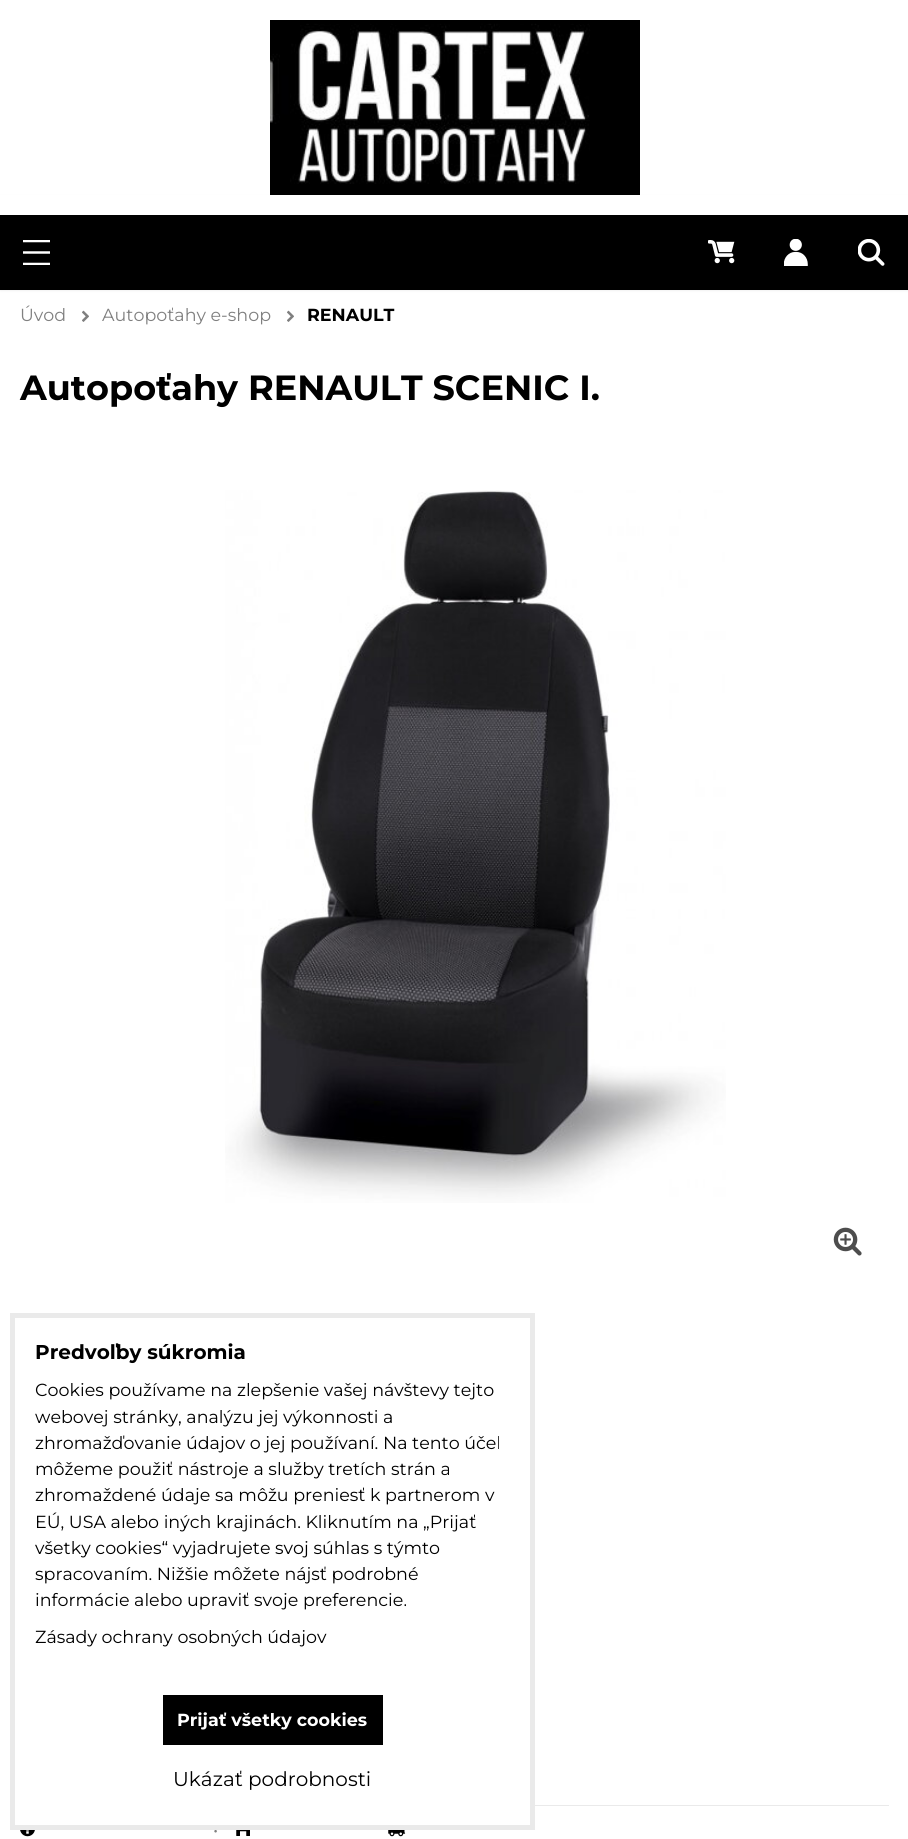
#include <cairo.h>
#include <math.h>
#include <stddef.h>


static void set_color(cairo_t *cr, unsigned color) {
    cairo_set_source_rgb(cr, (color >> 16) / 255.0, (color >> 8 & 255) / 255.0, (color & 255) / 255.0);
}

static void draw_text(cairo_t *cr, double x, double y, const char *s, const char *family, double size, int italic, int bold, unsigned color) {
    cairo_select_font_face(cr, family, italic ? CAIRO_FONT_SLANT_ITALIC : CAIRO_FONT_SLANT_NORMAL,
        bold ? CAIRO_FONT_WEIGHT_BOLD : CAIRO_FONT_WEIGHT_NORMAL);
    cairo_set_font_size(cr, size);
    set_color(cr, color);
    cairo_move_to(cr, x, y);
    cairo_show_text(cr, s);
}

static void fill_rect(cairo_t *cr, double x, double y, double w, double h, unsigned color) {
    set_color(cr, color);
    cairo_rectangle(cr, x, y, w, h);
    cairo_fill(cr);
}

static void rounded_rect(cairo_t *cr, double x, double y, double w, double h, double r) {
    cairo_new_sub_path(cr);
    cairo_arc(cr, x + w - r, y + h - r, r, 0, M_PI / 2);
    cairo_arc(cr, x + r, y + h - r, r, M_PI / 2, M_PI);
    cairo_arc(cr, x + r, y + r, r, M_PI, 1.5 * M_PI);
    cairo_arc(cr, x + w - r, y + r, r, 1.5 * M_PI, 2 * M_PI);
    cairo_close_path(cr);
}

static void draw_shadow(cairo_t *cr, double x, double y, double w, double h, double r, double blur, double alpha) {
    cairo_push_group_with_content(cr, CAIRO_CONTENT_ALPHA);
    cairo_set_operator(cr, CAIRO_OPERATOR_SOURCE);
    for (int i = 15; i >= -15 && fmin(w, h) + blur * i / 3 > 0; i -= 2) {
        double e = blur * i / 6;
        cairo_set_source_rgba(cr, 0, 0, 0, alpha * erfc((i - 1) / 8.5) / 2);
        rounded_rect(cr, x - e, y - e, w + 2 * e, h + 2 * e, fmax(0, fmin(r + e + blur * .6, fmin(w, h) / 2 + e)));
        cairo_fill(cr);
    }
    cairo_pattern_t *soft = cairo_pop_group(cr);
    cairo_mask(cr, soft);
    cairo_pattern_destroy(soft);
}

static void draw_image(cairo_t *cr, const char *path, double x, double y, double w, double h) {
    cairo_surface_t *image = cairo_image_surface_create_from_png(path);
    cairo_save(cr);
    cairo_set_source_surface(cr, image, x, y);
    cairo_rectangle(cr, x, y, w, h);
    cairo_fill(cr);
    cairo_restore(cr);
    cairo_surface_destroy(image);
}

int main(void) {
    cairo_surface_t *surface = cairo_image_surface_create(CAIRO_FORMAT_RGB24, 908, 1839);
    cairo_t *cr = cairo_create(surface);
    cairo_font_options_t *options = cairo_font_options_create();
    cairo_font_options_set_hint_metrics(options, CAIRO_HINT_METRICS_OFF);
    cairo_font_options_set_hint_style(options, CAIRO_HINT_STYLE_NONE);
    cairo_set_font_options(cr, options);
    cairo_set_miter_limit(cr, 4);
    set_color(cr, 0xFFFFFF);
    cairo_paint(cr);
    set_color(cr, 0x010101);
    draw_shadow(cr, 0, 199, 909, 89, 0, 2, 0.35);
    draw_image(cr, "assets/img1.png", 270, 20, 370, 175);
    fill_rect(cr, 0, 215, 908, 75, 0x000000);
    draw_image(cr, "assets/img2.png", 858, 239, 27, 27);
    fill_rect(cr, 0, 195, 908, 20, 0xFFFFFF);
    cairo_save(cr);
    cairo_rectangle(cr, 23, 240, 27, 25);
    cairo_clip(cr);
    cairo_new_path(cr);
    cairo_move_to(cr, 22.5, 264);
    cairo_line_to(cr, 50, 264);
    cairo_close_path(cr);
    cairo_move_to(cr, 22.5, 241);
    cairo_line_to(cr, 50, 241);
    cairo_close_path(cr);
    cairo_move_to(cr, 22.5, 252.5);
    cairo_line_to(cr, 50, 252.5);
    cairo_close_path(cr);
    cairo_set_line_width(cr, 2.5);
    cairo_set_line_cap(cr, CAIRO_LINE_CAP_ROUND);
    cairo_stroke(cr);
    cairo_restore(cr);
    draw_image(cr, "assets/img3.png", 708, 240, 27, 24);
    draw_image(cr, "assets/img4.png", 784, 239, 24, 27);
    draw_text(cr, 20, 321, "Úvod", "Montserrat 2 Thin", 17.5, 0, 0, 0x808080);
    draw_image(cr, "assets/img5.png", 82, 310, 7, 12);
    draw_text(cr, 102, 321, "Autopoťahy e-shop", "Montserrat 2 Thin", 17.5, 0, 0, 0x808080);
    draw_image(cr, "assets/img5.png", 287, 310, 7, 12);
    draw_text(cr, 307, 321, "RENAULT", "Montserrat Thin", 17.5, 0, 0, 0x000000);
    draw_text(cr, 20, 400, "Autopoťahy RENAULT SCENIC I.", "Montserrat Thin", 35, 0, 0, 0x000000);
    draw_image(cr, "assets/img6.png", 225, 490, 501, 713);
    draw_image(cr, "assets/img7.png", 833, 1227, 29, 29);
    fill_rect(cr, 535, 1805, 354, 1, 0xEAEAEA);
    draw_image(cr, "assets/img8.png", 20, 1830, 15, 7);
    draw_text(cr, 213, 1836, "•", "Montserrat 2 Thin", 17.5, 0, 0, 0x808080);
    draw_image(cr, "assets/img9.png", 236, 1830, 14, 6);
    draw_image(cr, "assets/img10.png", 388, 1830, 18, 7);
    cairo_rectangle(cr, 12.5, 1315.5, 520, 512);
    set_color(cr, 0xEAEAEA);
    cairo_set_line_width(cr, 5);
    cairo_stroke(cr);
    draw_text(cr, 35, 1359, "Predvoľby súkromia", "Montserrat Thin", 20, 0, 0, 0x000000);
    draw_text(cr, 35, 1396, "Cookies používame na zlepšenie vašej návštevy tejto", "Montserrat 2 Thin", 17.5, 0, 0, 0x000000);
    draw_text(cr, 35, 1423, "webovej stránky, analýzu jej výkonnosti a", "Montserrat 2 Thin", 17.5, 0, 0, 0x000000);
    draw_text(cr, 35, 1449, "zhromažďovanie údajov o jej používaní. Na tento účel", "Montserrat 2 Thin", 17.5, 0, 0, 0x000000);
    draw_text(cr, 35, 1475, "môžeme použiť nástroje a služby tretích strán a", "Montserrat 2 Thin", 17.5, 0, 0, 0x000000);
    draw_text(cr, 35, 1501, "zhromaždené údaje sa môžu preniesť k partnerom v", "Montserrat 2 Thin", 17.5, 0, 0, 0x000000);
    draw_text(cr, 35, 1528, "EÚ, USA alebo iných krajinách. Kliknutím na „Prijať", "Montserrat 2 Thin", 17.5, 0, 0, 0x000000);
    draw_text(cr, 35, 1554, "všetky cookies“ vyjadrujete svoj súhlas s týmto", "Montserrat 2 Thin", 17.5, 0, 0, 0x000000);
    draw_text(cr, 35, 1580, "spracovaním. Nižšie môžete nájsť podrobné", "Montserrat 2 Thin", 17.5, 0, 0, 0x000000);
    draw_text(cr, 35, 1606, "informácie alebo upraviť svoje preferencie.", "Montserrat 2 Thin", 17.5, 0, 0, 0x000000);
    draw_text(cr, 35, 1643, "Zásady ochrany osobných údajov", "Montserrat 2 Thin", 17.5, 0, 0, 0x000000);
    fill_rect(cr, 163, 1695, 220, 50, 0x000000);
    draw_text(cr, 177, 1726, "Prijať všetky cookies", "Montserrat Thin", 17.5, 0, 0, 0xFFFFFF);
    draw_text(cr, 173, 1786, "Ukázať podrobnosti", "Montserrat 2 Thin", 20, 0, 0, 0x000000);
    cairo_surface_write_to_png(surface, "output.png");
    cairo_font_options_destroy(options);
    cairo_destroy(cr);
    cairo_surface_destroy(surface);
    return 0;
}
